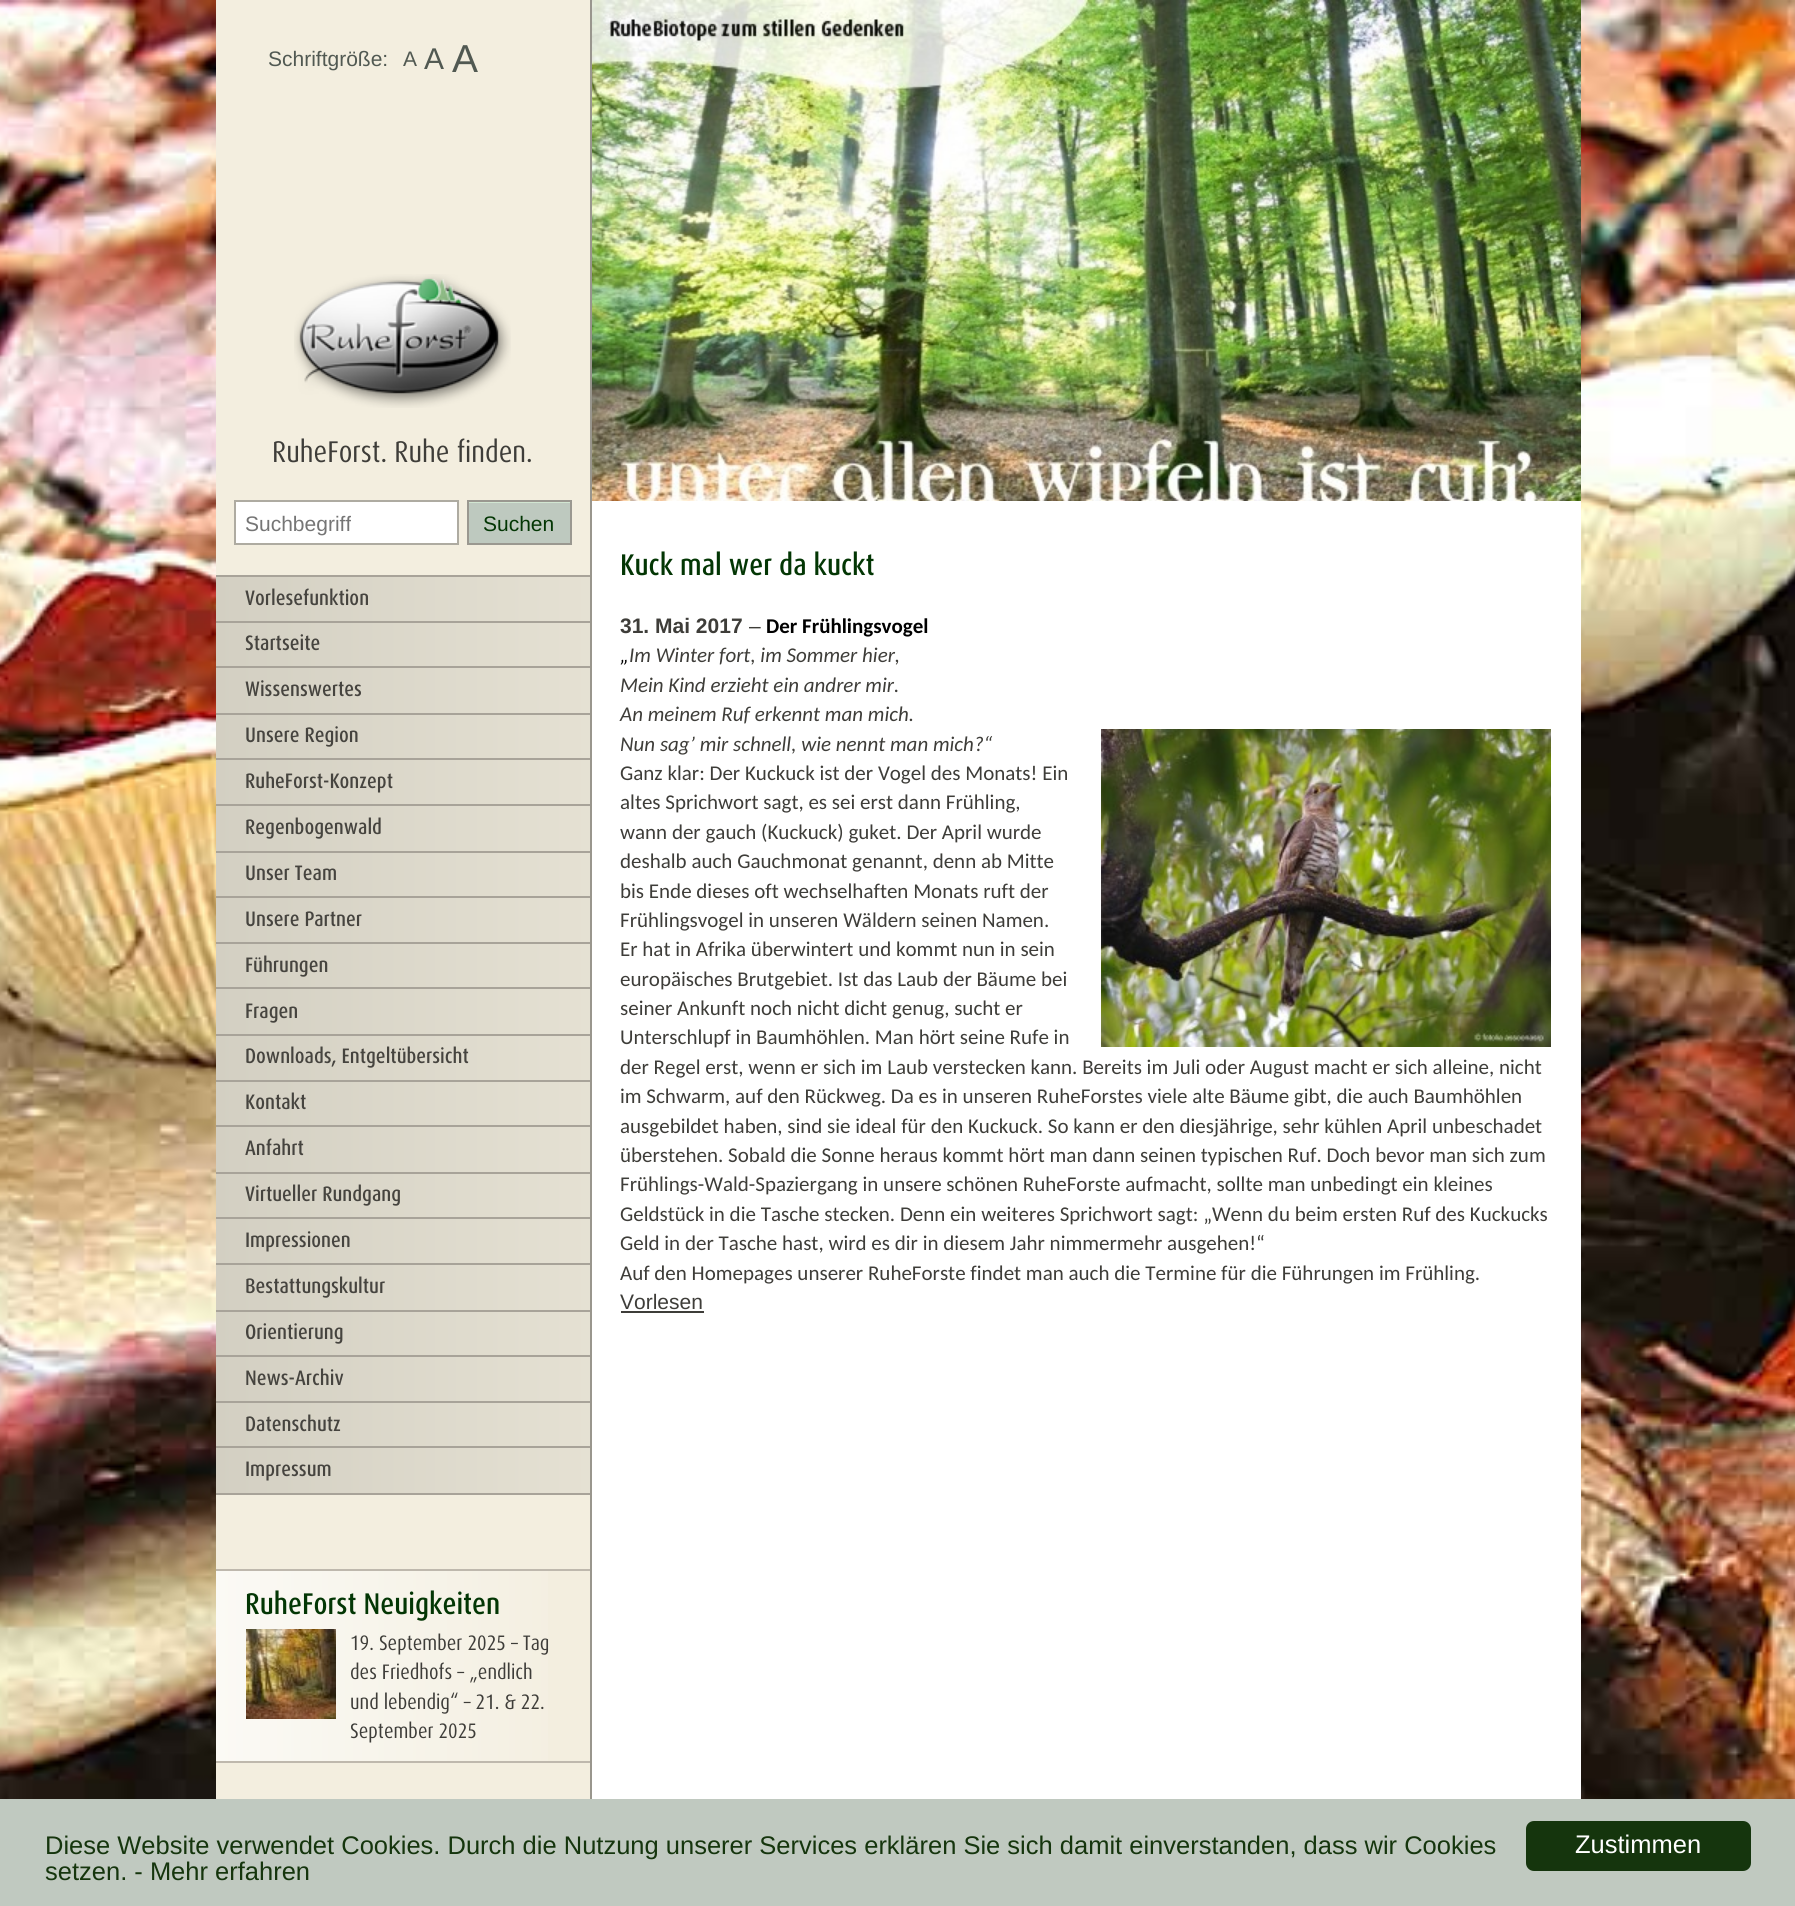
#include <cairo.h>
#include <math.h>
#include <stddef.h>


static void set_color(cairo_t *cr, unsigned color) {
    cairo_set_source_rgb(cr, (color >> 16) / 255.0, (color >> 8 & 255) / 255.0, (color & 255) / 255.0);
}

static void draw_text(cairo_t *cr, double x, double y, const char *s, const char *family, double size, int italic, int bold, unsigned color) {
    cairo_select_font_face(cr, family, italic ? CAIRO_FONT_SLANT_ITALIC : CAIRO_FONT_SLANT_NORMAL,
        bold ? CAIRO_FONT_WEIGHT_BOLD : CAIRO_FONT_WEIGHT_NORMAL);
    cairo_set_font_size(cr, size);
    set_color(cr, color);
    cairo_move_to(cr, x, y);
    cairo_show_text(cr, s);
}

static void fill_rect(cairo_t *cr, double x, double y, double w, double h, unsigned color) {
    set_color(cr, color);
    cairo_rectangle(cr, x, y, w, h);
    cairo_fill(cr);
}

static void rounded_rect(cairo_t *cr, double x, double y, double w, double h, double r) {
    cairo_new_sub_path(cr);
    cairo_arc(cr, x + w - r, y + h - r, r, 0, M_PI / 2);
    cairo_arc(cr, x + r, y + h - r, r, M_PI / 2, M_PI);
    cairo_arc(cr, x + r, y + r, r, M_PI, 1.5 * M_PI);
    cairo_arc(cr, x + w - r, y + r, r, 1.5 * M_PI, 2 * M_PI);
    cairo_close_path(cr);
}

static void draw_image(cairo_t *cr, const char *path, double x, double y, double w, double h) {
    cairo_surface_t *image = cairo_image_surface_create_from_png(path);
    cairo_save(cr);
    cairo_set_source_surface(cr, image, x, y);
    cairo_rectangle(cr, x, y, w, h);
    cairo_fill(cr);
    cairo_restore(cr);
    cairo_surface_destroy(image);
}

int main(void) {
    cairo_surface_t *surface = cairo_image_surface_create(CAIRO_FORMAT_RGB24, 1795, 1906);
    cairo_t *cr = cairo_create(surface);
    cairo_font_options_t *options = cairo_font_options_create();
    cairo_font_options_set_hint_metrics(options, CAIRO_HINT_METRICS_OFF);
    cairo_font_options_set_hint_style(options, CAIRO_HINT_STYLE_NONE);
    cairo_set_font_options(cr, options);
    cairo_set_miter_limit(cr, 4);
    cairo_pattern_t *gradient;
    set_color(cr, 0xFFFFFF);
    cairo_paint(cr);
    draw_image(cr, "assets/img1.png", 0, 0, 1795, 1799);
    fill_rect(cr, 216, 0, 374, 1799, 0xF3EEDF);
    fill_rect(cr, 590, 0, 2, 1799, 0x99968D);
    draw_text(cr, 268, 66, "Schriftgröße:", "Liberation Sans", 21, 0, 0, 0x515952);
    draw_text(cr, 403, 66, "A", "Liberation Sans", 21, 0, 0, 0x515952);
    draw_text(cr, 424, 69, "A", "Liberation Sans", 30, 0, 0, 0x515952);
    draw_text(cr, 452, 72, "A", "Liberation Sans", 39, 0, 0, 0x515952);
    draw_image(cr, "assets/img2.png", 294, 274, 217, 134);
    draw_text(cr, 272, 462, "RuheForst. Ruhe finden.", "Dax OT", 30, 0, 0, 0x3E3D39);
    set_color(cr, 0xFFFFFF);
    cairo_rectangle(cr, 235, 501, 223, 43);
    cairo_fill_preserve(cr);
    set_color(cr, 0xAEABA1);
    cairo_stroke(cr);
    draw_text(cr, 245, 531, "Suchbegriff", "Liberation Sans", 21, 0, 0, 0x757575);
    fill_rect(cr, 469, 503, 101, 40, 0xBEC9BF);
    fill_rect(cr, 468, 502, 102, 1, 0xD2E6D2);
    cairo_rectangle(cr, 468, 501, 103, 43);
    set_color(cr, 0x9A9890);
    cairo_stroke(cr);
    draw_text(cr, 483, 531, "Suchen", "Liberation Sans", 21, 0, 0, 0x033604);
    gradient = cairo_pattern_create_linear(216, 1034, 590, 1034);
    cairo_pattern_add_color_stop_rgba(gradient, 0, 0.827, 0.812, 0.761, 1);
    cairo_pattern_add_color_stop_rgba(gradient, 1, 0.898, 0.882, 0.827, 1);
    cairo_set_source(cr, gradient);
    cairo_pattern_destroy(gradient);
    cairo_rectangle(cr, 216, 577, 374, 916);
    cairo_fill(cr);
    fill_rect(cr, 216, 1493, 374, 2, 0xA8A399);
    fill_rect(cr, 216, 575, 374, 2, 0xA8A399);
    draw_text(cr, 245, 605, "Vorlesefunktion", "Dax OT Medium", 21, 0, 0, 0x46443F);
    fill_rect(cr, 216, 621, 374, 2, 0xA8A399);
    draw_text(cr, 245, 650, "Startseite", "Dax OT Medium", 21, 0, 0, 0x46443F);
    fill_rect(cr, 216, 666, 374, 2, 0xA8A399);
    draw_text(cr, 245, 696, "Wissenswertes", "Dax OT Medium", 21, 0, 0, 0x46443F);
    fill_rect(cr, 216, 713, 374, 2, 0xA8A399);
    draw_text(cr, 245, 742, "Unsere Region", "Dax OT Medium", 21, 0, 0, 0x46443F);
    fill_rect(cr, 216, 758, 374, 2, 0xA8A399);
    draw_text(cr, 245, 788, "RuheForst-Konzept", "Dax OT Medium", 21, 0, 0, 0x46443F);
    fill_rect(cr, 216, 804, 374, 2, 0xA8A399);
    draw_text(cr, 245, 834, "Regenbogenwald", "Dax OT Medium", 21, 0, 0, 0x46443F);
    fill_rect(cr, 216, 851, 374, 2, 0xA8A399);
    draw_text(cr, 245, 880, "Unser Team", "Dax OT Medium", 21, 0, 0, 0x46443F);
    fill_rect(cr, 216, 896, 374, 2, 0xA8A399);
    draw_text(cr, 245, 926, "Unsere Partner", "Dax OT Medium", 21, 0, 0, 0x46443F);
    fill_rect(cr, 216, 942, 374, 2, 0xA8A399);
    draw_text(cr, 245, 972, "Führungen", "Dax OT Medium", 21, 0, 0, 0x46443F);
    fill_rect(cr, 216, 987, 374, 2, 0xA8A399);
    draw_text(cr, 245, 1018, "Fragen", "Dax OT Medium", 21, 0, 0, 0x46443F);
    fill_rect(cr, 216, 1034, 374, 2, 0xA8A399);
    draw_text(cr, 245, 1063, "Downloads, Entgeltübersicht", "Dax OT Medium", 21, 0, 0, 0x46443F);
    fill_rect(cr, 216, 1080, 374, 2, 0xA8A399);
    draw_text(cr, 245, 1109, "Kontakt", "Dax OT Medium", 21, 0, 0, 0x46443F);
    fill_rect(cr, 216, 1125, 374, 2, 0xA8A399);
    draw_text(cr, 245, 1155, "Anfahrt", "Dax OT Medium", 21, 0, 0, 0x46443F);
    fill_rect(cr, 216, 1172, 374, 2, 0xA8A399);
    draw_text(cr, 245, 1201, "Virtueller Rundgang", "Dax OT Medium", 21, 0, 0, 0x46443F);
    fill_rect(cr, 216, 1217, 374, 2, 0xA8A399);
    draw_text(cr, 245, 1247, "Impressionen", "Dax OT Medium", 21, 0, 0, 0x46443F);
    fill_rect(cr, 216, 1263, 374, 2, 0xA8A399);
    draw_text(cr, 245, 1293, "Bestattungskultur", "Dax OT Medium", 21, 0, 0, 0x46443F);
    fill_rect(cr, 216, 1310, 374, 2, 0xA8A399);
    draw_text(cr, 245, 1339, "Orientierung", "Dax OT Medium", 21, 0, 0, 0x46443F);
    fill_rect(cr, 216, 1355, 374, 2, 0xA8A399);
    draw_text(cr, 245, 1385, "News-Archiv", "Dax OT Medium", 21, 0, 0, 0x46443F);
    fill_rect(cr, 216, 1401, 374, 2, 0xA8A399);
    draw_text(cr, 245, 1431, "Datenschutz", "Dax OT Medium", 21, 0, 0, 0x46443F);
    fill_rect(cr, 216, 1446, 374, 2, 0xA8A399);
    draw_text(cr, 245, 1476, "Impressum", "Dax OT Medium", 21, 0, 0, 0x46443F);
    gradient = cairo_pattern_create_linear(216, 1666, 590, 1666);
    cairo_pattern_add_color_stop_rgba(gradient, 0, 0.984, 0.98, 0.961, 1);
    cairo_pattern_add_color_stop_rgba(gradient, 1, 0.953, 0.933, 0.875, 1);
    cairo_set_source(cr, gradient);
    cairo_pattern_destroy(gradient);
    cairo_rectangle(cr, 216, 1571, 332, 190);
    cairo_fill(cr);
    fill_rect(cr, 216, 1569, 374, 2, 0xBEB8AD);
    fill_rect(cr, 216, 1761, 374, 2, 0xBEB8AD);
    draw_text(cr, 245, 1614, "RuheForst Neuigkeiten", "Dax OT Medium", 30, 0, 0, 0x033604);
    draw_image(cr, "assets/img3.png", 246, 1629, 90, 90);
    draw_text(cr, 350, 1650, "19. September 2025 – Tag", "Dax OT", 21, 0, 0, 0x3E3D39);
    draw_text(cr, 350, 1679, "des Friedhofs – „endlich", "Dax OT", 21, 0, 0, 0x3E3D39);
    draw_text(cr, 350, 1709, "und lebendig“ – 21. & 22.", "Dax OT", 21, 0, 0, 0x3E3D39);
    draw_text(cr, 350, 1738, "September 2025", "Dax OT", 21, 0, 0, 0x3E3D39);
    fill_rect(cr, 592, 501, 989, 1298, 0xFFFFFF);
    draw_image(cr, "assets/img4.png", 592, 0, 989, 501);
    draw_text(cr, 620, 575, "Kuck mal wer da kuckt", "Dax OT Medium", 30, 0, 0, 0x033604);
    draw_text(cr, 620, 633, "31. Mai 2017", "Liberation Sans", 21, 0, 1, 0x3E3D39);
    draw_text(cr, 749, 633, "–", "Liberation Sans", 21, 0, 0, 0x3E3D39);
    draw_text(cr, 766, 633, "Der Frühlingsvogel", "Carlito", 21, 0, 1, 0x000000);
    draw_text(cr, 620, 662, "„", "Carlito", 21, 1, 0, 0x000000);
    draw_text(cr, 629, 662, "Im Winter fort, im Sommer hier,", "Carlito", 21, 1, 0, 0x3E3D39);
    draw_text(cr, 620, 692, "Mein Kind erzieht ein andrer mir.", "Carlito", 21, 1, 0, 0x3E3D39);
    draw_text(cr, 620, 721, "An meinem Ruf erkennt man mich.", "Carlito", 21, 1, 0, 0x3E3D39);
    draw_text(cr, 620, 751, "Nun sag’ mir schnell, wie nennt man mich?“", "Carlito", 21, 1, 0, 0x3E3D39);
    draw_text(cr, 620, 780, "Ganz klar: Der Kuckuck ist der Vogel des Monats! Ein", "Carlito", 21, 0, 0, 0x3E3D39);
    draw_image(cr, "assets/img5.png", 1101, 729, 450, 318);
    draw_text(cr, 620, 809, "altes Sprichwort sagt, es sei erst dann Frühling,", "Carlito", 21, 0, 0, 0x3E3D39);
    draw_text(cr, 620, 839, "wann der gauch (Kuckuck) guket. Der April wurde", "Carlito", 21, 0, 0, 0x3E3D39);
    draw_text(cr, 620, 868, "deshalb auch Gauchmonat genannt, denn ab Mitte", "Carlito", 21, 0, 0, 0x3E3D39);
    draw_text(cr, 620, 898, "bis Ende dieses oft wechselhaften Monats ruft der", "Carlito", 21, 0, 0, 0x3E3D39);
    draw_text(cr, 620, 927, "Frühlingsvogel in unseren Wäldern seinen Namen.", "Carlito", 21, 0, 0, 0x3E3D39);
    draw_text(cr, 620, 956, "Er hat in Afrika überwintert und kommt nun in sein", "Carlito", 21, 0, 0, 0x3E3D39);
    draw_text(cr, 620, 986, "europäisches Brutgebiet. Ist das Laub der Bäume bei", "Carlito", 21, 0, 0, 0x3E3D39);
    draw_text(cr, 620, 1015, "seiner Ankunft noch nicht dicht genug, sucht er", "Carlito", 21, 0, 0, 0x3E3D39);
    draw_text(cr, 620, 1044, "Unterschlupf in Baumhöhlen. Man hört seine Rufe in", "Carlito", 21, 0, 0, 0x3E3D39);
    draw_text(cr, 620, 1074, "der Regel erst, wenn er sich im Laub verstecken kann. Bereits im Juli oder August macht er sich alleine, nicht", "Carlito", 21, 0, 0, 0x3E3D39);
    draw_text(cr, 620, 1103, "im Schwarm, auf den Rückweg. Da es in unseren RuheForstes viele alte Bäume gibt, die auch Baumhöhlen", "Carlito", 21, 0, 0, 0x3E3D39);
    draw_text(cr, 620, 1133, "ausgebildet haben, sind sie ideal für den Kuckuck. So kann er den diesjährige, sehr kühlen April unbeschadet", "Carlito", 21, 0, 0, 0x3E3D39);
    draw_text(cr, 620, 1162, "überstehen. Sobald die Sonne heraus kommt hört man dann seinen typischen Ruf. Doch bevor man sich zum", "Carlito", 21, 0, 0, 0x3E3D39);
    draw_text(cr, 620, 1191, "Frühlings-Wald-Spaziergang in unsere schönen RuheForste aufmacht, sollte man unbedingt ein kleines", "Carlito", 21, 0, 0, 0x3E3D39);
    draw_text(cr, 620, 1221, "Geldstück in die Tasche stecken. Denn ein weiteres Sprichwort sagt: „Wenn du beim ersten Ruf des Kuckucks", "Carlito", 21, 0, 0, 0x3E3D39);
    draw_text(cr, 620, 1250, "Geld in der Tasche hast, wird es dir in diesem Jahr nimmermehr ausgehen!“", "Carlito", 21, 0, 0, 0x3E3D39);
    draw_text(cr, 620, 1280, "Auf den Homepages unserer RuheForste findet man auch die Termine für die Führungen im Frühling.", "Carlito", 21, 0, 0, 0x3E3D39);
    draw_text(cr, 620, 1309, "Vorlesen", "Liberation Sans", 21, 0, 0, 0x3E3D39);
    fill_rect(cr, 621, 1311, 83, 2, 0x3E3D39);
    fill_rect(cr, 0, 1799, 1795, 107, 0xC0C9C0);
    draw_text(cr, 45, 1854, "Diese Website verwendet Cookies. Durch die Nutzung unserer Services erklären Sie sich damit einverstanden, dass wir Cookies", "Liberation Sans", 25.5, 0, 0, 0x15350D);
    draw_text(cr, 45, 1880, "setzen. - Mehr erfahren", "Liberation Sans", 25.5, 0, 0, 0x15350D);
    rounded_rect(cr, 1526, 1821, 225, 50, 8);
    cairo_fill(cr);
    draw_text(cr, 1575, 1853, "Zustimmen", "Liberation Sans", 25.5, 0, 0, 0xFFFFFF);
    cairo_surface_write_to_png(surface, "output.png");
    cairo_font_options_destroy(options);
    cairo_destroy(cr);
    cairo_surface_destroy(surface);
    return 0;
}
